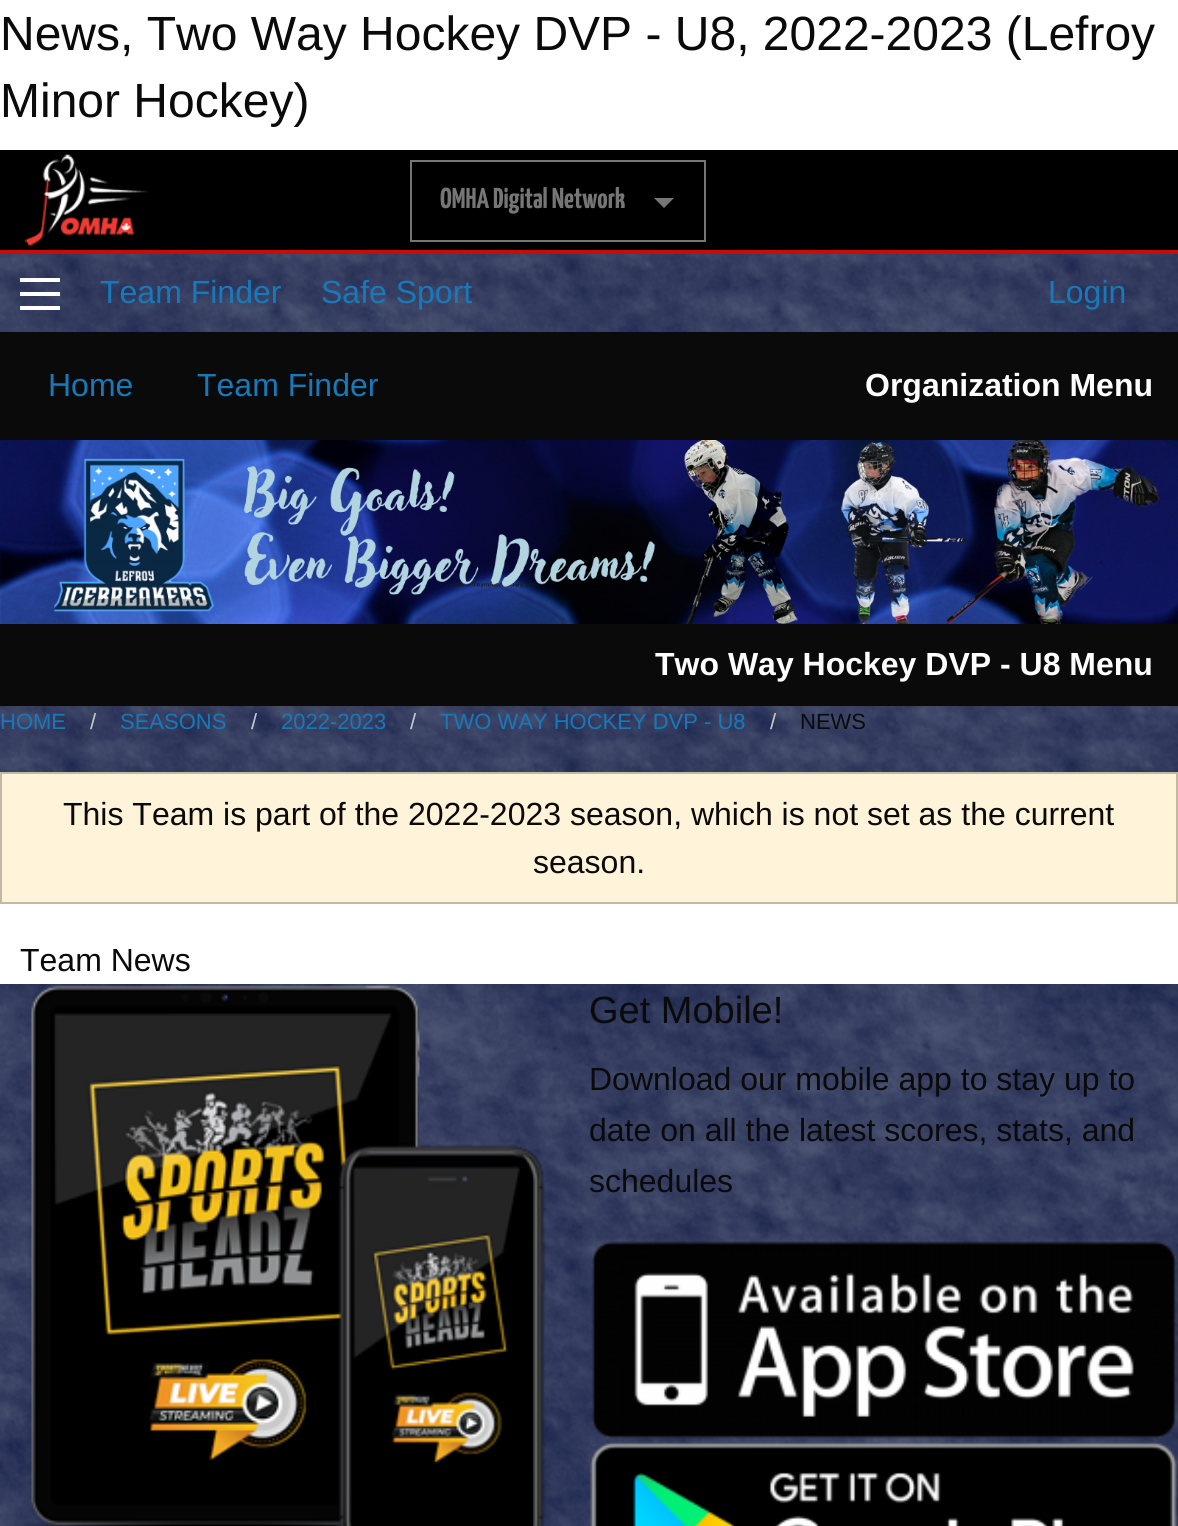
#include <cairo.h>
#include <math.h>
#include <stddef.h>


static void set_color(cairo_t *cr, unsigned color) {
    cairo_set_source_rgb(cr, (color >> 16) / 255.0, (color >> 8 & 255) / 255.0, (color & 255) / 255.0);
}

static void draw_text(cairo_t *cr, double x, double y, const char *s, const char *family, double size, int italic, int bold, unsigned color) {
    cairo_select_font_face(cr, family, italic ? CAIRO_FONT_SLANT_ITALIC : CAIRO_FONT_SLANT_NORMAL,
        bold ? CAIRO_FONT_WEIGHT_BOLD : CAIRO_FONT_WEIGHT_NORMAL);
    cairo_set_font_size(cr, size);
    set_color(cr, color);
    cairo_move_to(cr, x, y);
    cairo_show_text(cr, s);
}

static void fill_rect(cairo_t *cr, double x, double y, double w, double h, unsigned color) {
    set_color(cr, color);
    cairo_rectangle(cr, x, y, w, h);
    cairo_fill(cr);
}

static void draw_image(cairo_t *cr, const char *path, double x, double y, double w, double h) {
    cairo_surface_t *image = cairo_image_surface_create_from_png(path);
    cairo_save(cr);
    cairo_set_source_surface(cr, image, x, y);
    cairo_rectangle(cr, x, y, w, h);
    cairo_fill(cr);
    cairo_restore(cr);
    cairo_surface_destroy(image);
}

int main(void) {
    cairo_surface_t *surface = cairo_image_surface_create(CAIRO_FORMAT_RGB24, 1178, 1526);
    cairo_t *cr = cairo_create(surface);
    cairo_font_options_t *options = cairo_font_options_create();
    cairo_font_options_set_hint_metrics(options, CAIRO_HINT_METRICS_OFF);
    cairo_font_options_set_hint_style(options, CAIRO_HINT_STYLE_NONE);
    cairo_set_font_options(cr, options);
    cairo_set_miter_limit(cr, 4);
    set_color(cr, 0xFFFFFF);
    cairo_paint(cr);
    draw_text(cr, 0, 50, "News, Two Way Hockey DVP - U8, 2022-2023 (Lefroy", "Liberation Sans", 48, 0, 0, 0x0A0A0A);
    draw_text(cr, 0, 117, "Minor Hockey)", "Liberation Sans", 48, 0, 0, 0x0A0A0A);
    fill_rect(cr, 0, 150, 1178, 100, 0x000000);
    fill_rect(cr, 0, 250, 1178, 4, 0xC60C0C);
    draw_image(cr, "assets/img1.png", 24, 154, 125, 92);
    cairo_rectangle(cr, 411, 161, 294, 80);
    set_color(cr, 0x767676);
    cairo_stroke(cr);
    draw_text(cr, 440, 208, "OMHA Digital Network", "Yanone Kaffeesatz ExtraLight", 28.75, 0, 0, 0x767676);
    cairo_new_path(cr);
    cairo_move_to(cr, 654, 198);
    cairo_line_to(cr, 674, 198);
    cairo_line_to(cr, 664, 208);
    cairo_close_path(cr);
    cairo_fill(cr);
    fill_rect(cr, 0, 254, 1178, 1272, 0x131D46);
    draw_image(cr, "assets/img2.png", 0, 254, 1178, 1272);
    fill_rect(cr, 20, 306, 40, 4, 0xFEFEFE);
    fill_rect(cr, 20, 292, 40, 4, 0xFEFEFE);
    fill_rect(cr, 20, 278, 40, 4, 0xFEFEFE);
    draw_text(cr, 100, 303, "Team Finder", "Liberation Sans", 32, 0, 0, 0x1779BA);
    draw_text(cr, 321, 303, "Safe Sport", "Liberation Sans", 32, 0, 0, 0x1779BA);
    draw_text(cr, 1048, 303, "Login", "Liberation Sans", 32, 0, 0, 0x1779BA);
    fill_rect(cr, 0, 332, 1178, 108, 0x0A0A0A);
    draw_text(cr, 48, 396, "Home", "Liberation Sans", 32, 0, 0, 0x1779BA);
    draw_text(cr, 197, 396, "Team Finder", "Liberation Sans", 32, 0, 0, 0x1779BA);
    draw_text(cr, 865, 396, "Organization Menu", "Liberation Sans", 32, 0, 1, 0xFEFEFE);
    draw_image(cr, "assets/img3.png", 0, 440, 1178, 184);
    fill_rect(cr, 0, 624, 1178, 82, 0x0A0A0A);
    draw_text(cr, 655, 675, "Two Way Hockey DVP - U8 Menu", "Liberation Sans", 32, 0, 1, 0xFEFEFE);
    draw_text(cr, 0, 729, "HOME", "Liberation Sans", 22, 0, 0, 0x1779BA);
    draw_text(cr, 90, 729, "/", "Liberation Sans", 22, 0, 0, 0xCACACA);
    draw_text(cr, 120, 729, "SEASONS", "Liberation Sans", 22, 0, 0, 0x1779BA);
    draw_text(cr, 251, 729, "/", "Liberation Sans", 22, 0, 0, 0xCACACA);
    draw_text(cr, 281, 729, "2022-2023", "Liberation Sans", 22, 0, 0, 0x1779BA);
    draw_text(cr, 410, 729, "/", "Liberation Sans", 22, 0, 0, 0xCACACA);
    draw_text(cr, 440, 729, "TWO WAY HOCKEY DVP - U8", "Liberation Sans", 22, 0, 0, 0x1779BA);
    draw_text(cr, 770, 729, "/", "Liberation Sans", 22, 0, 0, 0xCACACA);
    draw_text(cr, 800, 729, "NEWS", "Liberation Sans", 22, 0, 0, 0x0A0A0A);
    fill_rect(cr, 0, 904, 1178, 80, 0xFFFFFF);
    set_color(cr, 0xFFF3D9);
    cairo_rectangle(cr, 1, 773, 1176, 130);
    cairo_fill_preserve(cr);
    set_color(cr, 0xC2B9A5);
    cairo_stroke(cr);
    draw_text(cr, 63, 825, "This Team is part of the 2022-2023 season, which is not set as the current", "Liberation Sans", 32, 0, 0, 0x0A0A0A);
    draw_text(cr, 533, 873, "season.", "Liberation Sans", 32, 0, 0, 0x0A0A0A);
    draw_text(cr, 20, 971, "Team News", "Liberation Sans", 32, 0, 0, 0x0A0A0A);
    draw_image(cr, "assets/img4.png", 14, 984, 532, 542);
    draw_text(cr, 589, 1023, "Get Mobile!", "Liberation Sans", 38, 0, 0, 0x0A0A0A);
    draw_text(cr, 589, 1090, "Download our mobile app to stay up to", "Liberation Sans", 32, 0, 0, 0x0A0A0A);
    draw_text(cr, 589, 1141, "date on all the latest scores, stats, and", "Liberation Sans", 32, 0, 0, 0x0A0A0A);
    draw_text(cr, 589, 1192, "schedules", "Liberation Sans", 32, 0, 0, 0x0A0A0A);
    draw_image(cr, "assets/img5.png", 591, 1241, 586, 198);
    draw_image(cr, "assets/img6.png", 590, 1441, 587, 85);
    cairo_surface_write_to_png(surface, "output.png");
    cairo_font_options_destroy(options);
    cairo_destroy(cr);
    cairo_surface_destroy(surface);
    return 0;
}
